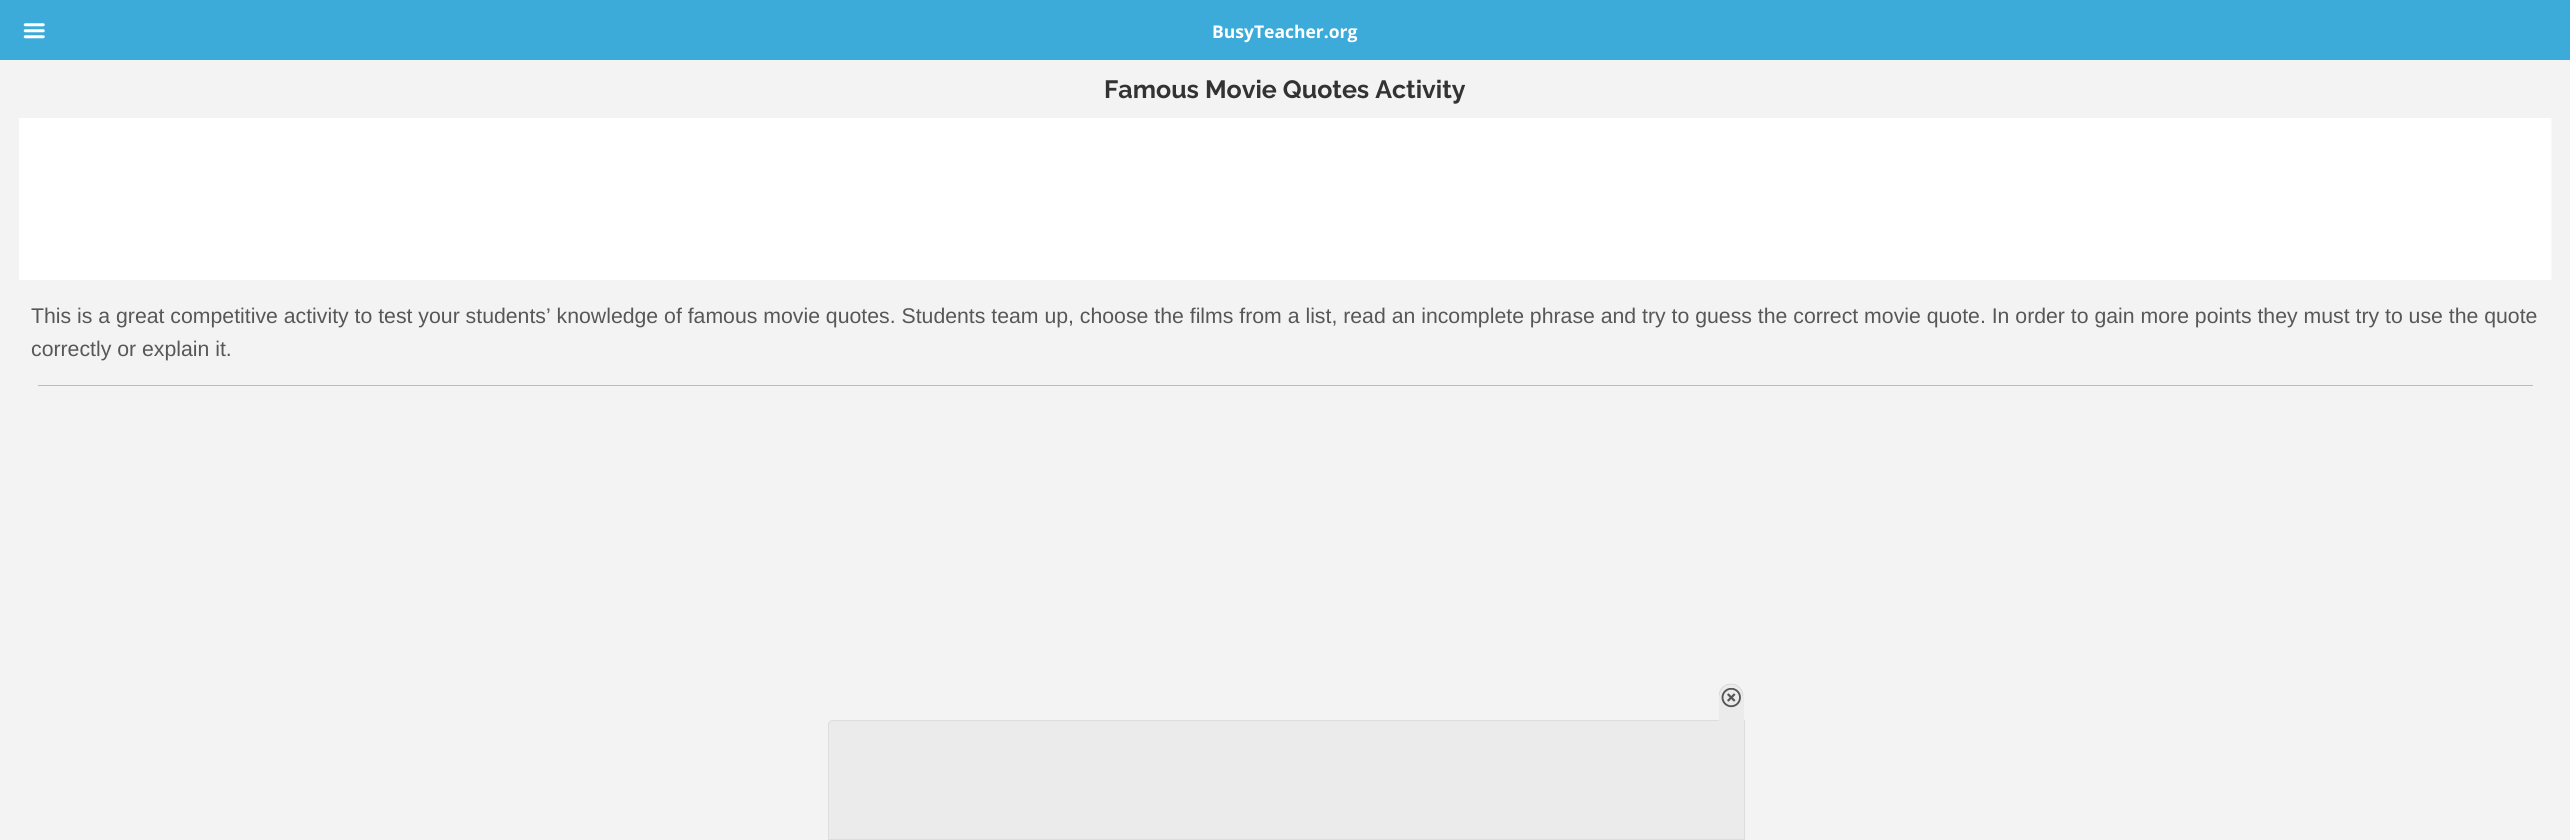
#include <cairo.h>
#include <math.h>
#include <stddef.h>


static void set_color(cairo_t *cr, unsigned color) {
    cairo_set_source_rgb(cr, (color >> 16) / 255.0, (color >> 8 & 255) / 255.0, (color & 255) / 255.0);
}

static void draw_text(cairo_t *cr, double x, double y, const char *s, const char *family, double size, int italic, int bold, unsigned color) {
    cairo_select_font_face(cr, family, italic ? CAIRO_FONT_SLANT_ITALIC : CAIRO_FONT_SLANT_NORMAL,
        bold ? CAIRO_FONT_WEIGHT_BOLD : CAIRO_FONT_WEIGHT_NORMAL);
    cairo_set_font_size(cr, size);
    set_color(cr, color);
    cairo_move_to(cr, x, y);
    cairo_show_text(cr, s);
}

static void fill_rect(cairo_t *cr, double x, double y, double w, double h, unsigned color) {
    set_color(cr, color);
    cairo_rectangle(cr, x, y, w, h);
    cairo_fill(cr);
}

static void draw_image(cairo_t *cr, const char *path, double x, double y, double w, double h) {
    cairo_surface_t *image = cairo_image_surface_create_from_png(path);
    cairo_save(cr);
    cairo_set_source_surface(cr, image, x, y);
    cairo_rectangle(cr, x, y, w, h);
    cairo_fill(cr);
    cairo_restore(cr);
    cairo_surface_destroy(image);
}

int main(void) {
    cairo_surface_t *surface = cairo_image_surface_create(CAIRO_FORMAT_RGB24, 2570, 840);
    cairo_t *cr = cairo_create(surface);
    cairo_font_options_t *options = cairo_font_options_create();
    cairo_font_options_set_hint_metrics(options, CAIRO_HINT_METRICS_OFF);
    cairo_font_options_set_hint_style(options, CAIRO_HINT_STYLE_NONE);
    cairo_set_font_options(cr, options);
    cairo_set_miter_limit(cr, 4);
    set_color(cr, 0xF3F3F3);
    cairo_paint(cr);
    fill_rect(cr, 0, 0, 2570, 60, 0x3CABDA);
    draw_image(cr, "assets/img1.png", 23, 23, 22, 16);
    draw_text(cr, 1212, 38, "BusyTeacher.org", "Open Sans", 17.5, 0, 1, 0xFFFFFF);
    draw_text(cr, 1104, 98, "Famous Movie Quotes Activity", "Raleway", 25, 0, 1, 0x333333);
    draw_image(cr, "assets/img2.png", 19, 118, 2533, 162);
    draw_text(cr, 31, 323, "This is a great competitive activity to test your students’ knowledge of famous movie quotes. Students team up, choose the films from a list, read an incomplete phrase and try to guess the correct movie quote. In order to gain more points they must try to use the quote", "Liberation Sans", 21.25, 0, 0, 0x575757);
    draw_text(cr, 31, 356, "correctly or explain it.", "Liberation Sans", 21.25, 0, 0, 0x575757);
    fill_rect(cr, 38, 385, 2495, 1, 0xB4BDC2);
    set_color(cr, 0xEBEBEB);
    cairo_new_path(cr);
    cairo_move_to(cr, 833, 720.5);
    cairo_line_to(cr, 1744.5, 720.5);
    cairo_line_to(cr, 1744.5, 839.5);
    cairo_line_to(cr, 828.5, 839.5);
    cairo_line_to(cr, 828.5, 725);
    cairo_curve_to(cr, 828.5, 722.5, 830.5, 720.5, 833, 720.5);
    cairo_close_path(cr);
    cairo_fill_preserve(cr);
    set_color(cr, 0xDDDDDD);
    cairo_set_line_width(cr, 1);
    cairo_stroke(cr);
    set_color(cr, 0xEBEBEB);
    cairo_arc(cr, 1731, 696, 12, 0, 2 * M_PI);
    cairo_fill(cr);
    cairo_save(cr);
    cairo_rectangle(cr, 1719, 671, 25, 50);
    cairo_clip(cr);
    cairo_arc(cr, 1731, 696, 12, 0, 2 * M_PI);
    set_color(cr, 0xCCCCCC);
    cairo_set_line_width(cr, 0.6);
    cairo_stroke(cr);
    cairo_restore(cr);
    fill_rect(cr, 1719, 696, 25, 25, 0xEBEBEB);
    draw_image(cr, "assets/img3.png", 1721, 688, 20, 20);
    cairo_surface_write_to_png(surface, "output.png");
    cairo_font_options_destroy(options);
    cairo_destroy(cr);
    cairo_surface_destroy(surface);
    return 0;
}
